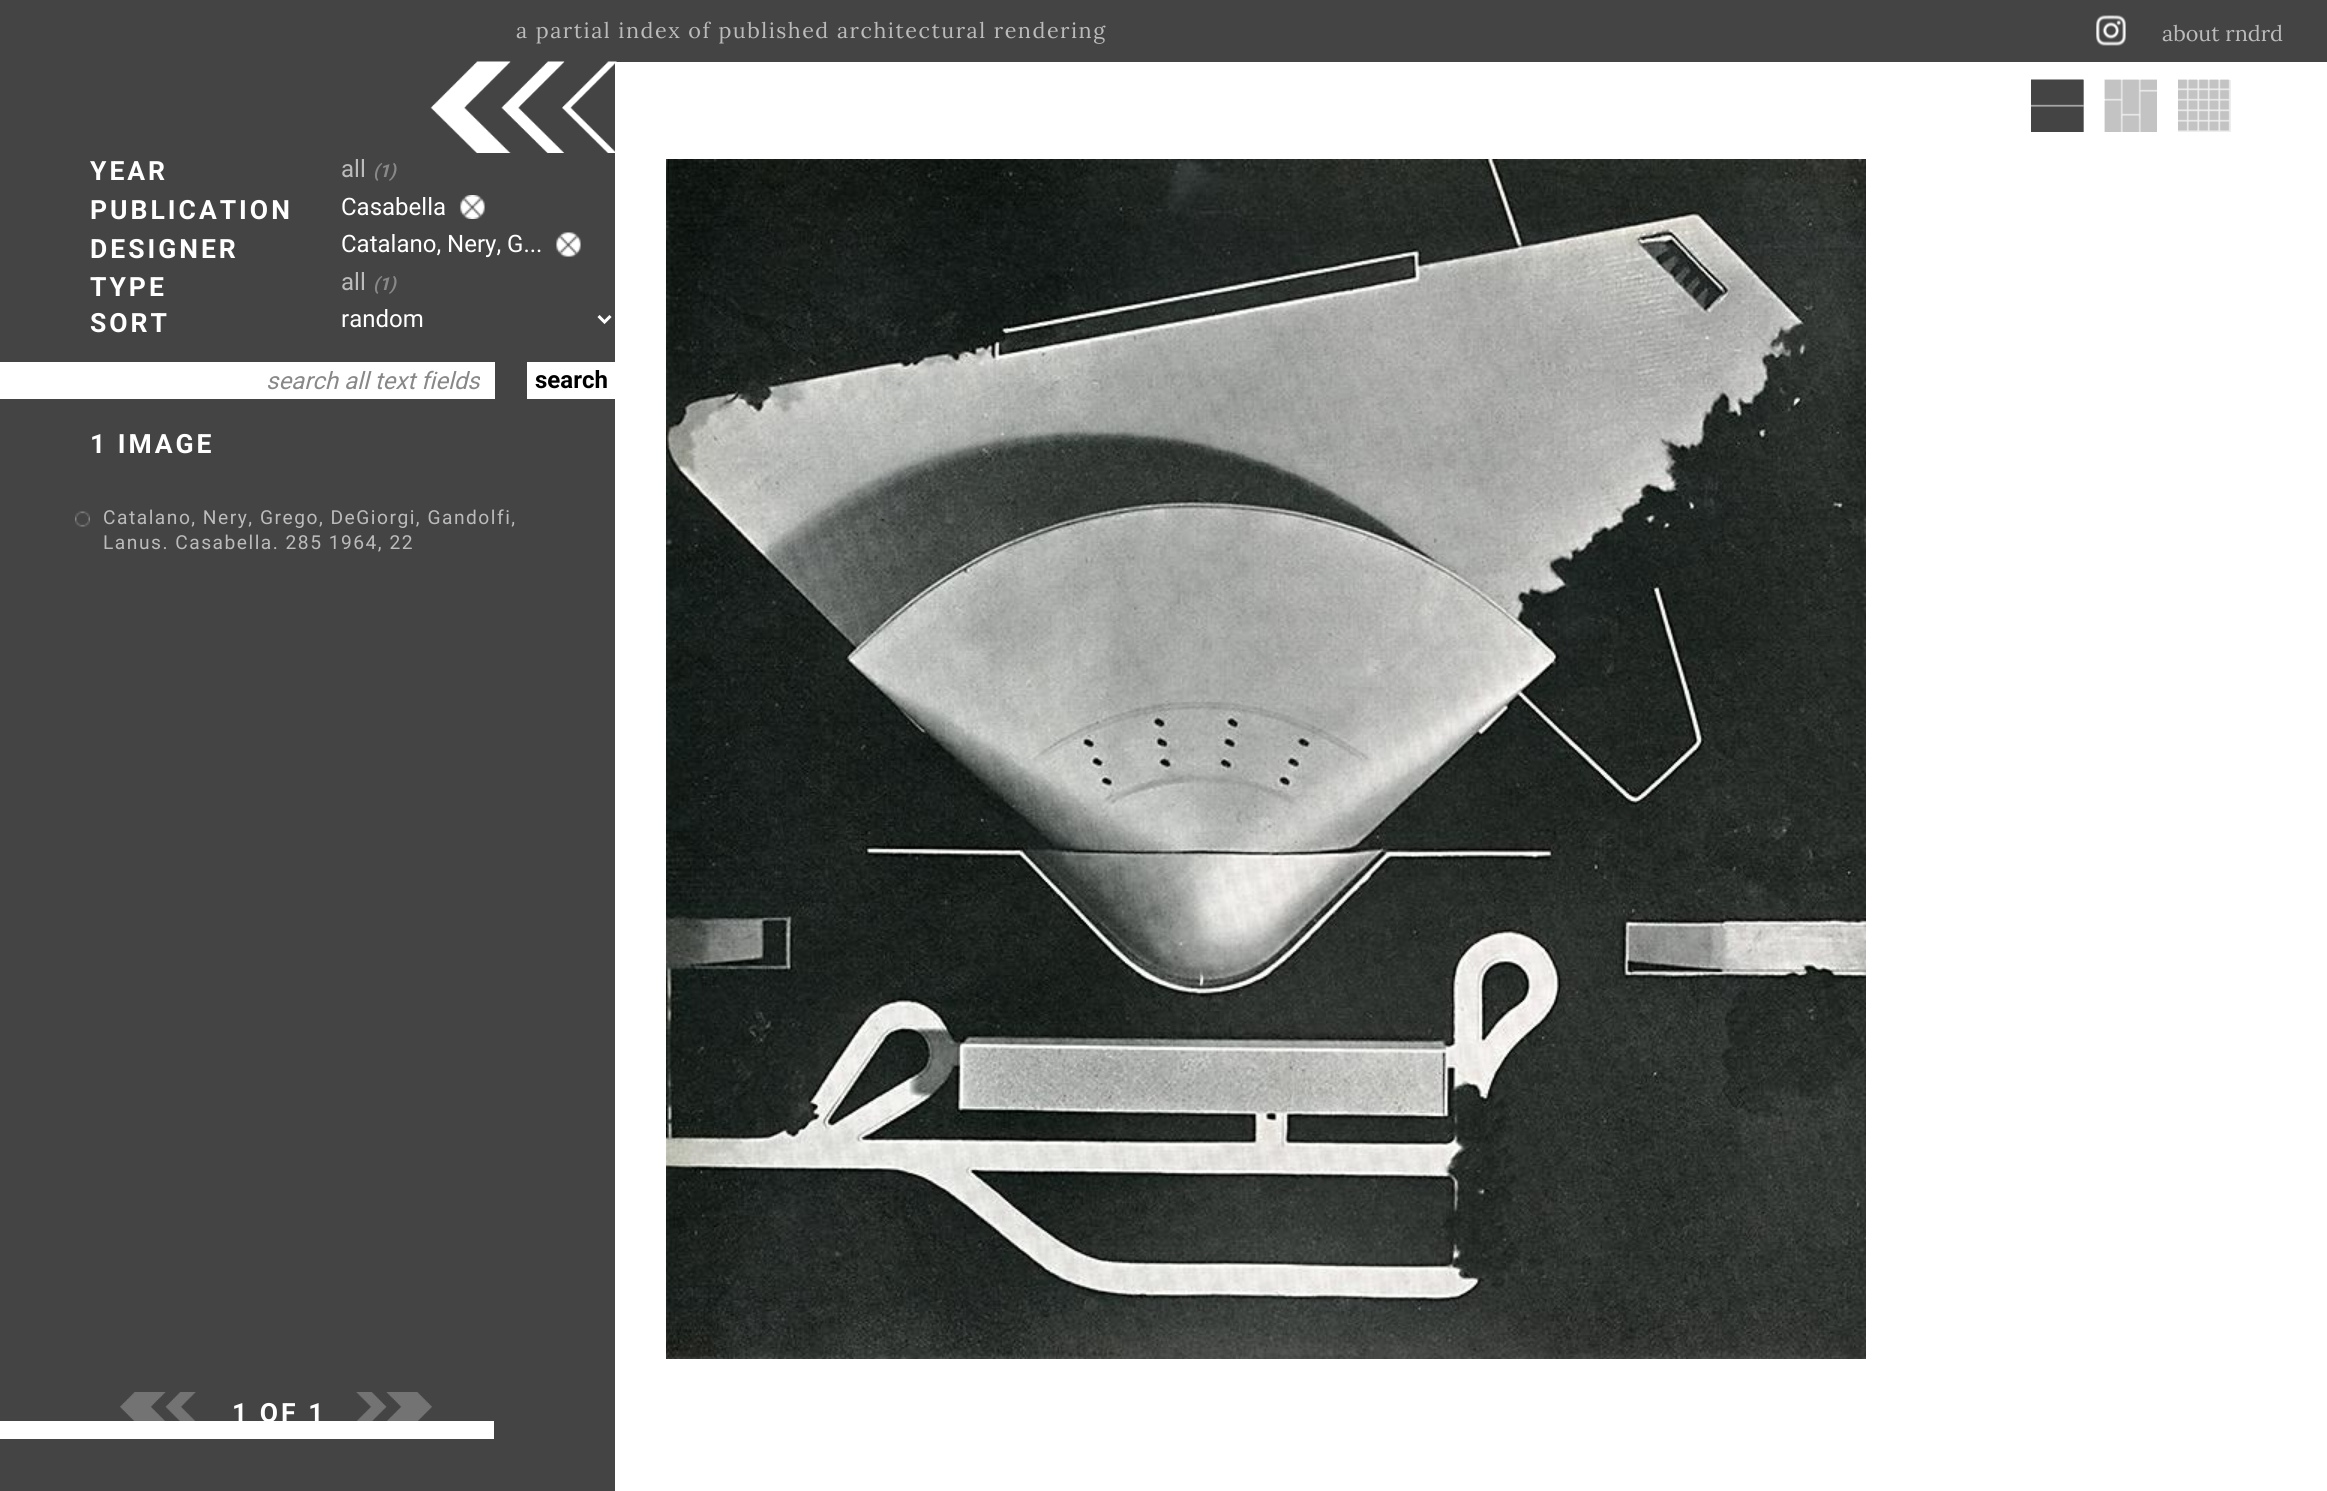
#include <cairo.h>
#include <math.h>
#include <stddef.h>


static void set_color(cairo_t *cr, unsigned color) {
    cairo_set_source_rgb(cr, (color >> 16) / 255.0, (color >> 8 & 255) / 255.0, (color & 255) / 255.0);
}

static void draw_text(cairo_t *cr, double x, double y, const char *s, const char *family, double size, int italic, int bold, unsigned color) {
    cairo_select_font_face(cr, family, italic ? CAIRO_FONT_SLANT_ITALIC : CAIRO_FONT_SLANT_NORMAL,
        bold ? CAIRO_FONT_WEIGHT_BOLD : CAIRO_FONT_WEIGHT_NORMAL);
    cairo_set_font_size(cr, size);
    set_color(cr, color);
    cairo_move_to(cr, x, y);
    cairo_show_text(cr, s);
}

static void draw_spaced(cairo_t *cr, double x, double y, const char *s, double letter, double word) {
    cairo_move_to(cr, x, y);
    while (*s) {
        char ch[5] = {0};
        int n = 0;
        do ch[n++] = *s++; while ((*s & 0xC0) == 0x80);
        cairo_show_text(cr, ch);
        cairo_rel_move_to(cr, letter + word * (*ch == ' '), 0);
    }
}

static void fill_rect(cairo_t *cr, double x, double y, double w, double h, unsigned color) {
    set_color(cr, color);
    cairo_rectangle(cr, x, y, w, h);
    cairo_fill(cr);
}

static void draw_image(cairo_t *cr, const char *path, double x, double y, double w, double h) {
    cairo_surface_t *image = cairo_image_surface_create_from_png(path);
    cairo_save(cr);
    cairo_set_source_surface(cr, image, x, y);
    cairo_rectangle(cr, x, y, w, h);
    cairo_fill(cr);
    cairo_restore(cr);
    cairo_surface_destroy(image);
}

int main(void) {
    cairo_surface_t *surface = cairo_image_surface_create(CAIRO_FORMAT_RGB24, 2327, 1491);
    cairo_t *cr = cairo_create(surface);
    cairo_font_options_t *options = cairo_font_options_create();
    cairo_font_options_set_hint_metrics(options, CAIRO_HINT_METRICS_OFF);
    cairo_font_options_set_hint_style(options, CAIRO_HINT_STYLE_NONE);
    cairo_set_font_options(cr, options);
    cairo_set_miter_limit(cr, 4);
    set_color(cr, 0x444444);
    cairo_paint(cr);
    cairo_select_font_face(cr, "Lora", CAIRO_FONT_SLANT_NORMAL, CAIRO_FONT_WEIGHT_NORMAL);
    cairo_set_font_size(cr, 21.6);
    set_color(cr, 0xBBBBBB);
    draw_spaced(cr, 516, 38, "a partial index of published architectural rendering", 1.5, 0);
    draw_image(cr, "assets/img1.png", 2096, 15, 30, 31);
    draw_text(cr, 2162, 41, "about rndrd", "Lora", 21.6, 0, 0, 0xBBBBBB);
    cairo_select_font_face(cr, "Roboto", CAIRO_FONT_SLANT_NORMAL, CAIRO_FONT_WEIGHT_BOLD);
    cairo_set_font_size(cr, 26.5);
    set_color(cr, 0xFFFFFF);
    draw_spaced(cr, 90, 180, "YEAR", 3, 0);
    draw_spaced(cr, 90, 219, "PUBLICATION", 3, 0);
    draw_spaced(cr, 90, 258, "DESIGNER", 3, 0);
    draw_spaced(cr, 90, 296, "TYPE", 3, 0);
    draw_spaced(cr, 90, 332, "SORT", 3, 0);
    draw_text(cr, 341, 177, "all", "Roboto", 24, 0, 0, 0xBBBBBB);
    draw_text(cr, 373, 177, "(1)", "Roboto", 18, 1, 1, 0x888888);
    draw_text(cr, 341, 215, "Casabella", "Roboto", 24, 0, 0, 0xFFFFFF);
    draw_image(cr, "assets/img2.png", 460, 195, 25, 24);
    draw_text(cr, 341, 252, "Catalano, Nery, G...", "Roboto", 24, 0, 0, 0xFFFFFF);
    draw_image(cr, "assets/img3.png", 556, 232, 25, 25);
    draw_text(cr, 341, 290, "all", "Roboto", 24, 0, 0, 0xBBBBBB);
    draw_text(cr, 373, 290, "(1)", "Roboto", 18, 1, 1, 0x888888);
    cairo_new_path(cr);
    cairo_move_to(cr, 598.5, 316);
    cairo_line_to(cr, 604.5, 322);
    cairo_line_to(cr, 610.5, 316);
    set_color(cr, 0xFFFFFF);
    cairo_set_line_width(cr, 3);
    cairo_stroke(cr);
    draw_text(cr, 341, 327, "random", "Roboto", 24, 0, 0, 0xFFFFFF);
    fill_rect(cr, 0, 362, 495, 37, 0xFFFFFF);
    cairo_save(cr);
    cairo_rectangle(cr, 90, 366, 390, 29);
    cairo_clip(cr);
    draw_text(cr, 266, 389, "search all text fields", "Roboto", 24, 1, 0, 0x888888);
    cairo_restore(cr);
    fill_rect(cr, 527, 362, 88, 37, 0xFFFFFF);
    draw_text(cr, 535, 388, "search", "Roboto", 24, 0, 1, 0x000000);
    cairo_set_font_size(cr, 26.5);
    set_color(cr, 0xFFFFFF);
    draw_spaced(cr, 90, 453, "1 IMAGE", 3, 0);
    draw_image(cr, "assets/img4.png", 75, 511, 15, 16);
    cairo_select_font_face(cr, "Roboto", CAIRO_FONT_SLANT_NORMAL, CAIRO_FONT_WEIGHT_NORMAL);
    cairo_set_font_size(cr, 19.2);
    set_color(cr, 0xBBBBBB);
    draw_spaced(cr, 103, 524, "Catalano, Nery, Grego, DeGiorgi, Gandolfi,", 1.5, 0);
    draw_spaced(cr, 103, 549, "Lanus. Casabella. 285 1964, 22", 1.5, 0);
    draw_image(cr, "assets/img5.png", 120, 1392, 76, 29);
    fill_rect(cr, 0, 1421, 494, 18, 0xFFFFFF);
    cairo_select_font_face(cr, "Roboto", CAIRO_FONT_SLANT_NORMAL, CAIRO_FONT_WEIGHT_BOLD);
    cairo_set_font_size(cr, 26.5);
    draw_spaced(cr, 232, 1422, "1 OF 1", 3, 0);
    draw_image(cr, "assets/img6.png", 356, 1392, 76, 29);
    fill_rect(cr, 615, 62, 1712, 1429, 0xFFFFFF);
    draw_image(cr, "assets/img7.png", 430, 61, 187, 92);
    fill_rect(cr, 2031, 80, 53, 52, 0xBBBBBB);
    draw_image(cr, "assets/img8.png", 2031, 79, 53, 53);
    fill_rect(cr, 2105, 80, 52, 52, 0xEEEEEE);
    draw_image(cr, "assets/img9.png", 2104, 79, 53, 53);
    fill_rect(cr, 2178, 80, 53, 52, 0xEEEEEE);
    draw_image(cr, "assets/img10.png", 2178, 79, 52, 52);
    draw_image(cr, "assets/img11.png", 666, 159, 1200, 1200);
    cairo_surface_write_to_png(surface, "output.png");
    cairo_font_options_destroy(options);
    cairo_destroy(cr);
    cairo_surface_destroy(surface);
    return 0;
}
